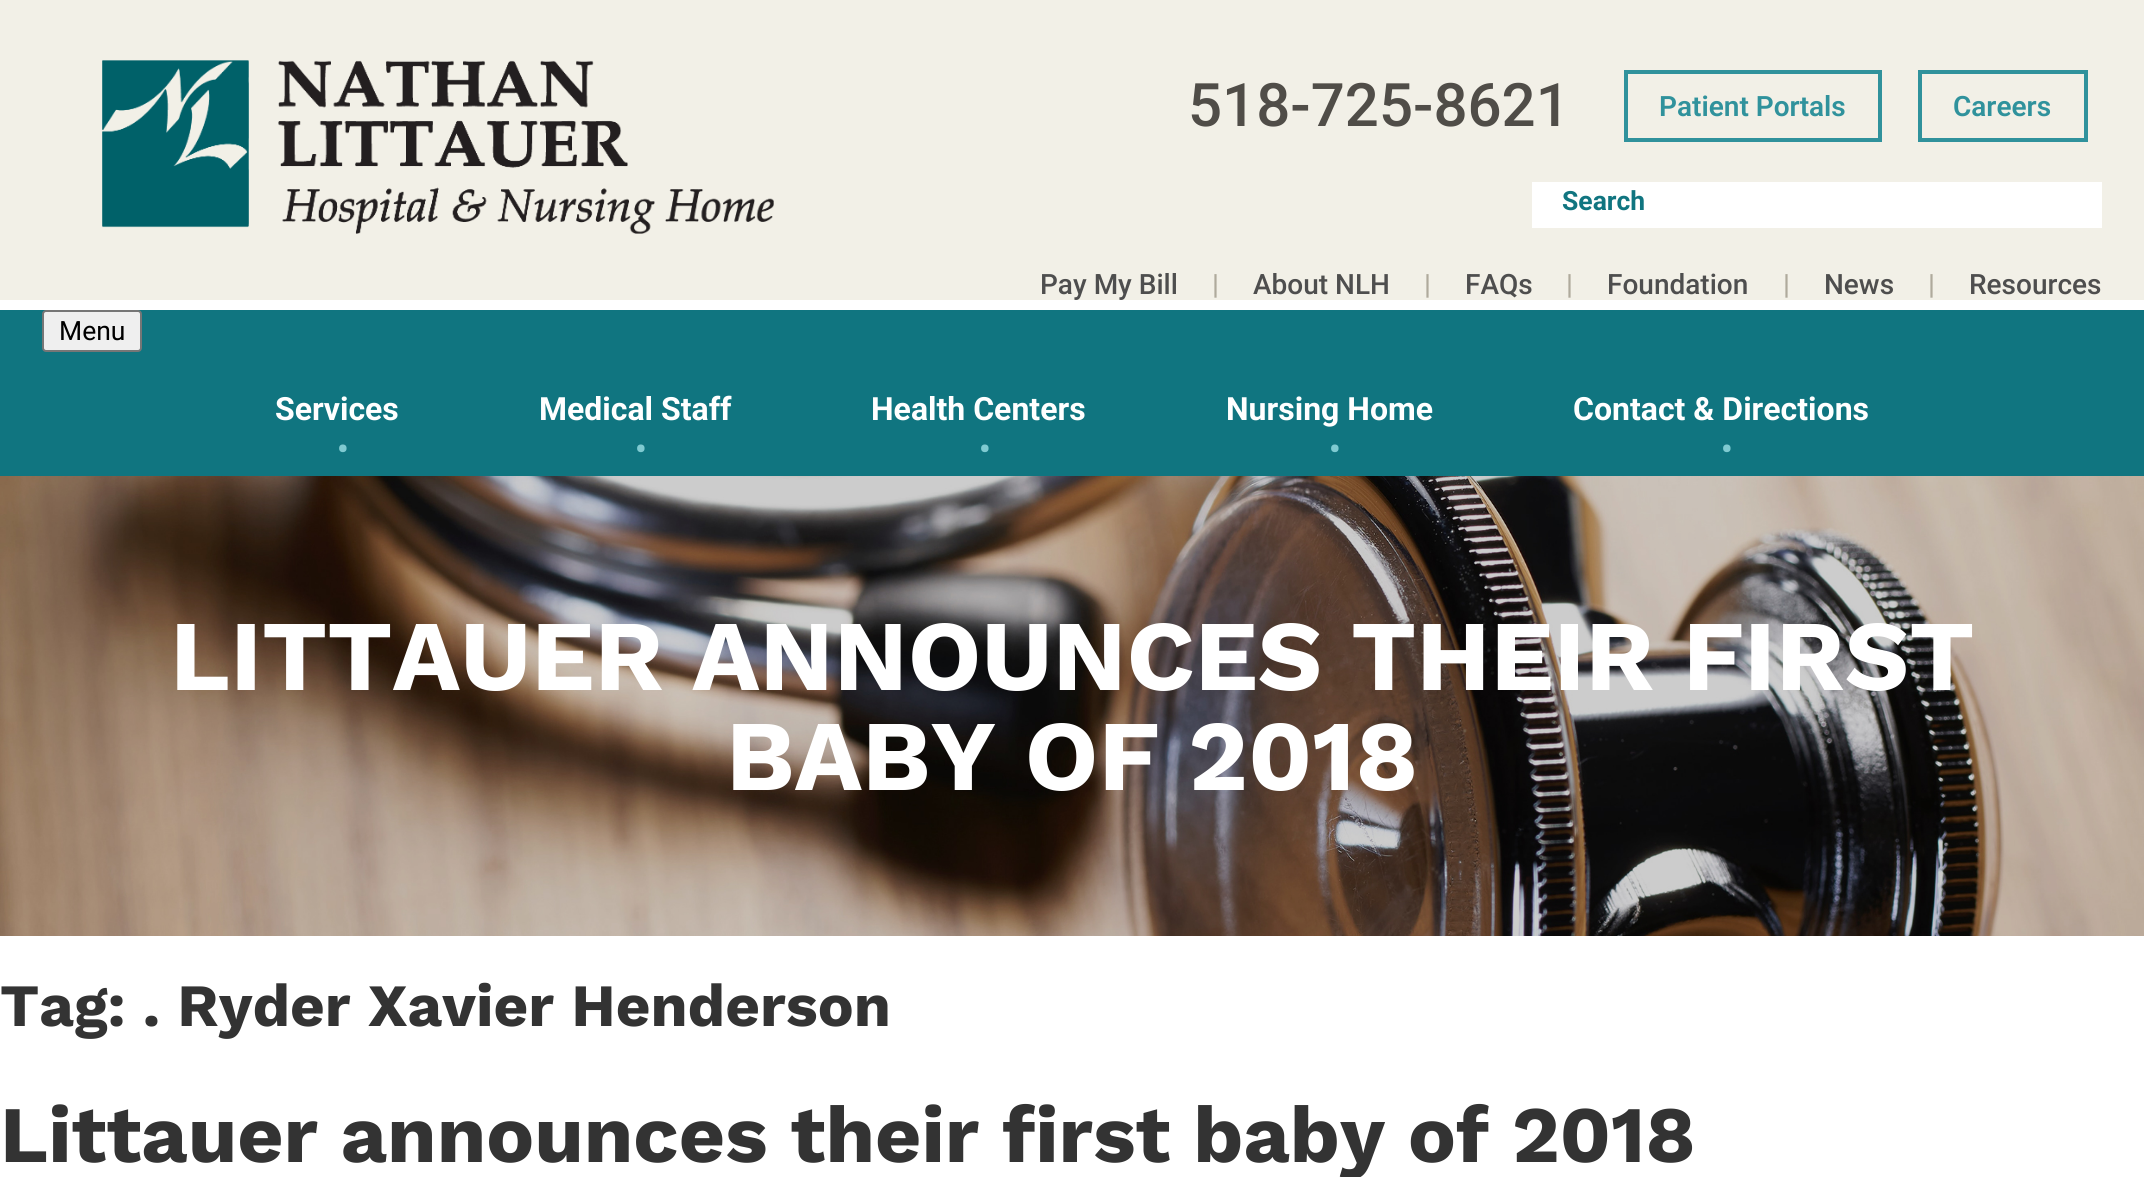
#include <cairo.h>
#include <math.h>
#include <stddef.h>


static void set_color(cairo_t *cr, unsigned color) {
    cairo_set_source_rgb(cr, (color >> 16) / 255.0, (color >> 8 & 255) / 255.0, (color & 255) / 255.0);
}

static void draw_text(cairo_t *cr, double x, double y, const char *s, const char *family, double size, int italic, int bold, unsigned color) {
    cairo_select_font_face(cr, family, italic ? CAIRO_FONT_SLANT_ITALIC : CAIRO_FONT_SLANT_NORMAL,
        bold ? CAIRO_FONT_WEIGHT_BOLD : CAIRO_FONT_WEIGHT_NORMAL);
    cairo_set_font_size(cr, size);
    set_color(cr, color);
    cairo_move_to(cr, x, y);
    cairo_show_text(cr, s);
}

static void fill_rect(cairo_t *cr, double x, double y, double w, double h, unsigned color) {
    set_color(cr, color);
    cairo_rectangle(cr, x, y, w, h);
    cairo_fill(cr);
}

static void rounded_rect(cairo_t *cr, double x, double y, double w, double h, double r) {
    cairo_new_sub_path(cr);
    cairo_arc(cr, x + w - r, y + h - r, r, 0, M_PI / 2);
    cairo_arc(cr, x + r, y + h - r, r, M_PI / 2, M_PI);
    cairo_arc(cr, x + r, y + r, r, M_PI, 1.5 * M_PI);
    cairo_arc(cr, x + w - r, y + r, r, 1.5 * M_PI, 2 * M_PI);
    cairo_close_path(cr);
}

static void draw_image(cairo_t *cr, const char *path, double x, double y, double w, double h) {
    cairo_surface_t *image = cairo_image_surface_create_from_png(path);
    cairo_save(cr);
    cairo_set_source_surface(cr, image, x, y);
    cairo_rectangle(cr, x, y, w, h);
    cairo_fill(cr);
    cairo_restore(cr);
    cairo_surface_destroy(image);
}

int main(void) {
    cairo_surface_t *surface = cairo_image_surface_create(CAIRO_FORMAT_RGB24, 2144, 1177);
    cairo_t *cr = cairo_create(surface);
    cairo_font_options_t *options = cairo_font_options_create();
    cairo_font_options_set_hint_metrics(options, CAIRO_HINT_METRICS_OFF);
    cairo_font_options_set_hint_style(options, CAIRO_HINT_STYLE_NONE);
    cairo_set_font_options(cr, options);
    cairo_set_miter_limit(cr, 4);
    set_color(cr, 0xFFFFFF);
    cairo_paint(cr);
    fill_rect(cr, 0, 0, 2144, 300, 0xF2F0E7);
    draw_image(cr, "assets/img1.png", 102, 60, 672, 174);
    draw_text(cr, 1188, 126, "518-725-8621", "Roboto Medium", 60, 0, 0, 0x504D48);
    cairo_rectangle(cr, 1626, 72, 254, 68);
    set_color(cr, 0x30929C);
    cairo_set_line_width(cr, 4);
    cairo_stroke(cr);
    draw_text(cr, 1659, 116, "Patient Portals", "Roboto SemiBold", 28, 0, 0, 0x30929C);
    cairo_rectangle(cr, 1920, 72, 166, 68);
    cairo_stroke(cr);
    draw_text(cr, 1953, 116, "Careers", "Roboto SemiBold", 28, 0, 0, 0x30929C);
    fill_rect(cr, 1532, 182, 570, 46, 0xFFFFFF);
    draw_text(cr, 1562, 210, "Search", "Roboto", 26.5, 0, 1, 0x107580);
    draw_text(cr, 1040, 294, "Pay My Bill", "Roboto Medium", 28, 0, 0, 0x4E4E4E);
    draw_text(cr, 1212, 294, "|", "Roboto Medium", 28, 0, 0, 0xAFAA9C);
    draw_text(cr, 1253, 294, "About NLH", "Roboto Medium", 28, 0, 0, 0x4E4E4E);
    draw_text(cr, 1424, 294, "|", "Roboto Medium", 28, 0, 0, 0xAFAA9C);
    draw_text(cr, 1465, 294, "FAQs", "Roboto Medium", 28, 0, 0, 0x4E4E4E);
    draw_text(cr, 1566, 294, "|", "Roboto Medium", 28, 0, 0, 0xAFAA9C);
    draw_text(cr, 1607, 294, "Foundation", "Roboto Medium", 28, 0, 0, 0x4E4E4E);
    draw_text(cr, 1783, 294, "|", "Roboto Medium", 28, 0, 0, 0xAFAA9C);
    draw_text(cr, 1824, 294, "News", "Roboto Medium", 28, 0, 0, 0x4E4E4E);
    draw_text(cr, 1928, 294, "|", "Roboto Medium", 28, 0, 0, 0xAFAA9C);
    draw_text(cr, 1969, 294, "Resources", "Roboto Medium", 28, 0, 0, 0x4E4E4E);
    fill_rect(cr, 0, 310, 2144, 166, 0x107580);
    set_color(cr, 0xEFEFEF);
    rounded_rect(cr, 43, 311, 98, 40, 3);
    cairo_fill_preserve(cr);
    set_color(cr, 0x767676);
    cairo_set_line_width(cr, 2);
    cairo_stroke(cr);
    draw_text(cr, 59, 340, "Menu", "Roboto", 26.5, 0, 0, 0x000000);
    draw_text(cr, 275, 420, "Services", "Roboto", 32, 0, 1, 0xFFFFFF);
    draw_text(cr, 337, 460, "•", "Roboto", 32, 0, 1, 0x7FCAD1);
    draw_text(cr, 539, 420, "Medical Staff", "Roboto", 32, 0, 1, 0xFFFFFF);
    draw_text(cr, 635, 460, "•", "Roboto", 32, 0, 1, 0x7FCAD1);
    draw_text(cr, 871, 420, "Health Centers", "Roboto", 32, 0, 1, 0xFFFFFF);
    draw_text(cr, 979, 460, "•", "Roboto", 32, 0, 1, 0x7FCAD1);
    draw_text(cr, 1226, 420, "Nursing Home", "Roboto", 32, 0, 1, 0xFFFFFF);
    draw_text(cr, 1329, 460, "•", "Roboto", 32, 0, 1, 0x7FCAD1);
    draw_text(cr, 1573, 420, "Contact & Directions", "Roboto", 32, 0, 1, 0xFFFFFF);
    draw_text(cr, 1721, 460, "•", "Roboto", 32, 0, 1, 0x7FCAD1);
    draw_image(cr, "assets/img2.png", 0, 476, 2144, 460);
    draw_text(cr, 170, 690, "LITTAUER ANNOUNCES THEIR FIRST", "Work Sans", 100, 0, 1, 0xFFFFFF);
    draw_text(cr, 726, 790, "BABY OF 2018", "Work Sans", 100, 0, 1, 0xFFFFFF);
    draw_text(cr, 0, 1026, "Tag: . Ryder Xavier Henderson", "Work Sans", 60, 0, 1, 0x333333);
    draw_text(cr, 0, 1162, "Littauer announces their first baby of 2018", "Work Sans", 80, 0, 1, 0x333333);
    cairo_surface_write_to_png(surface, "output.png");
    cairo_font_options_destroy(options);
    cairo_destroy(cr);
    cairo_surface_destroy(surface);
    return 0;
}
